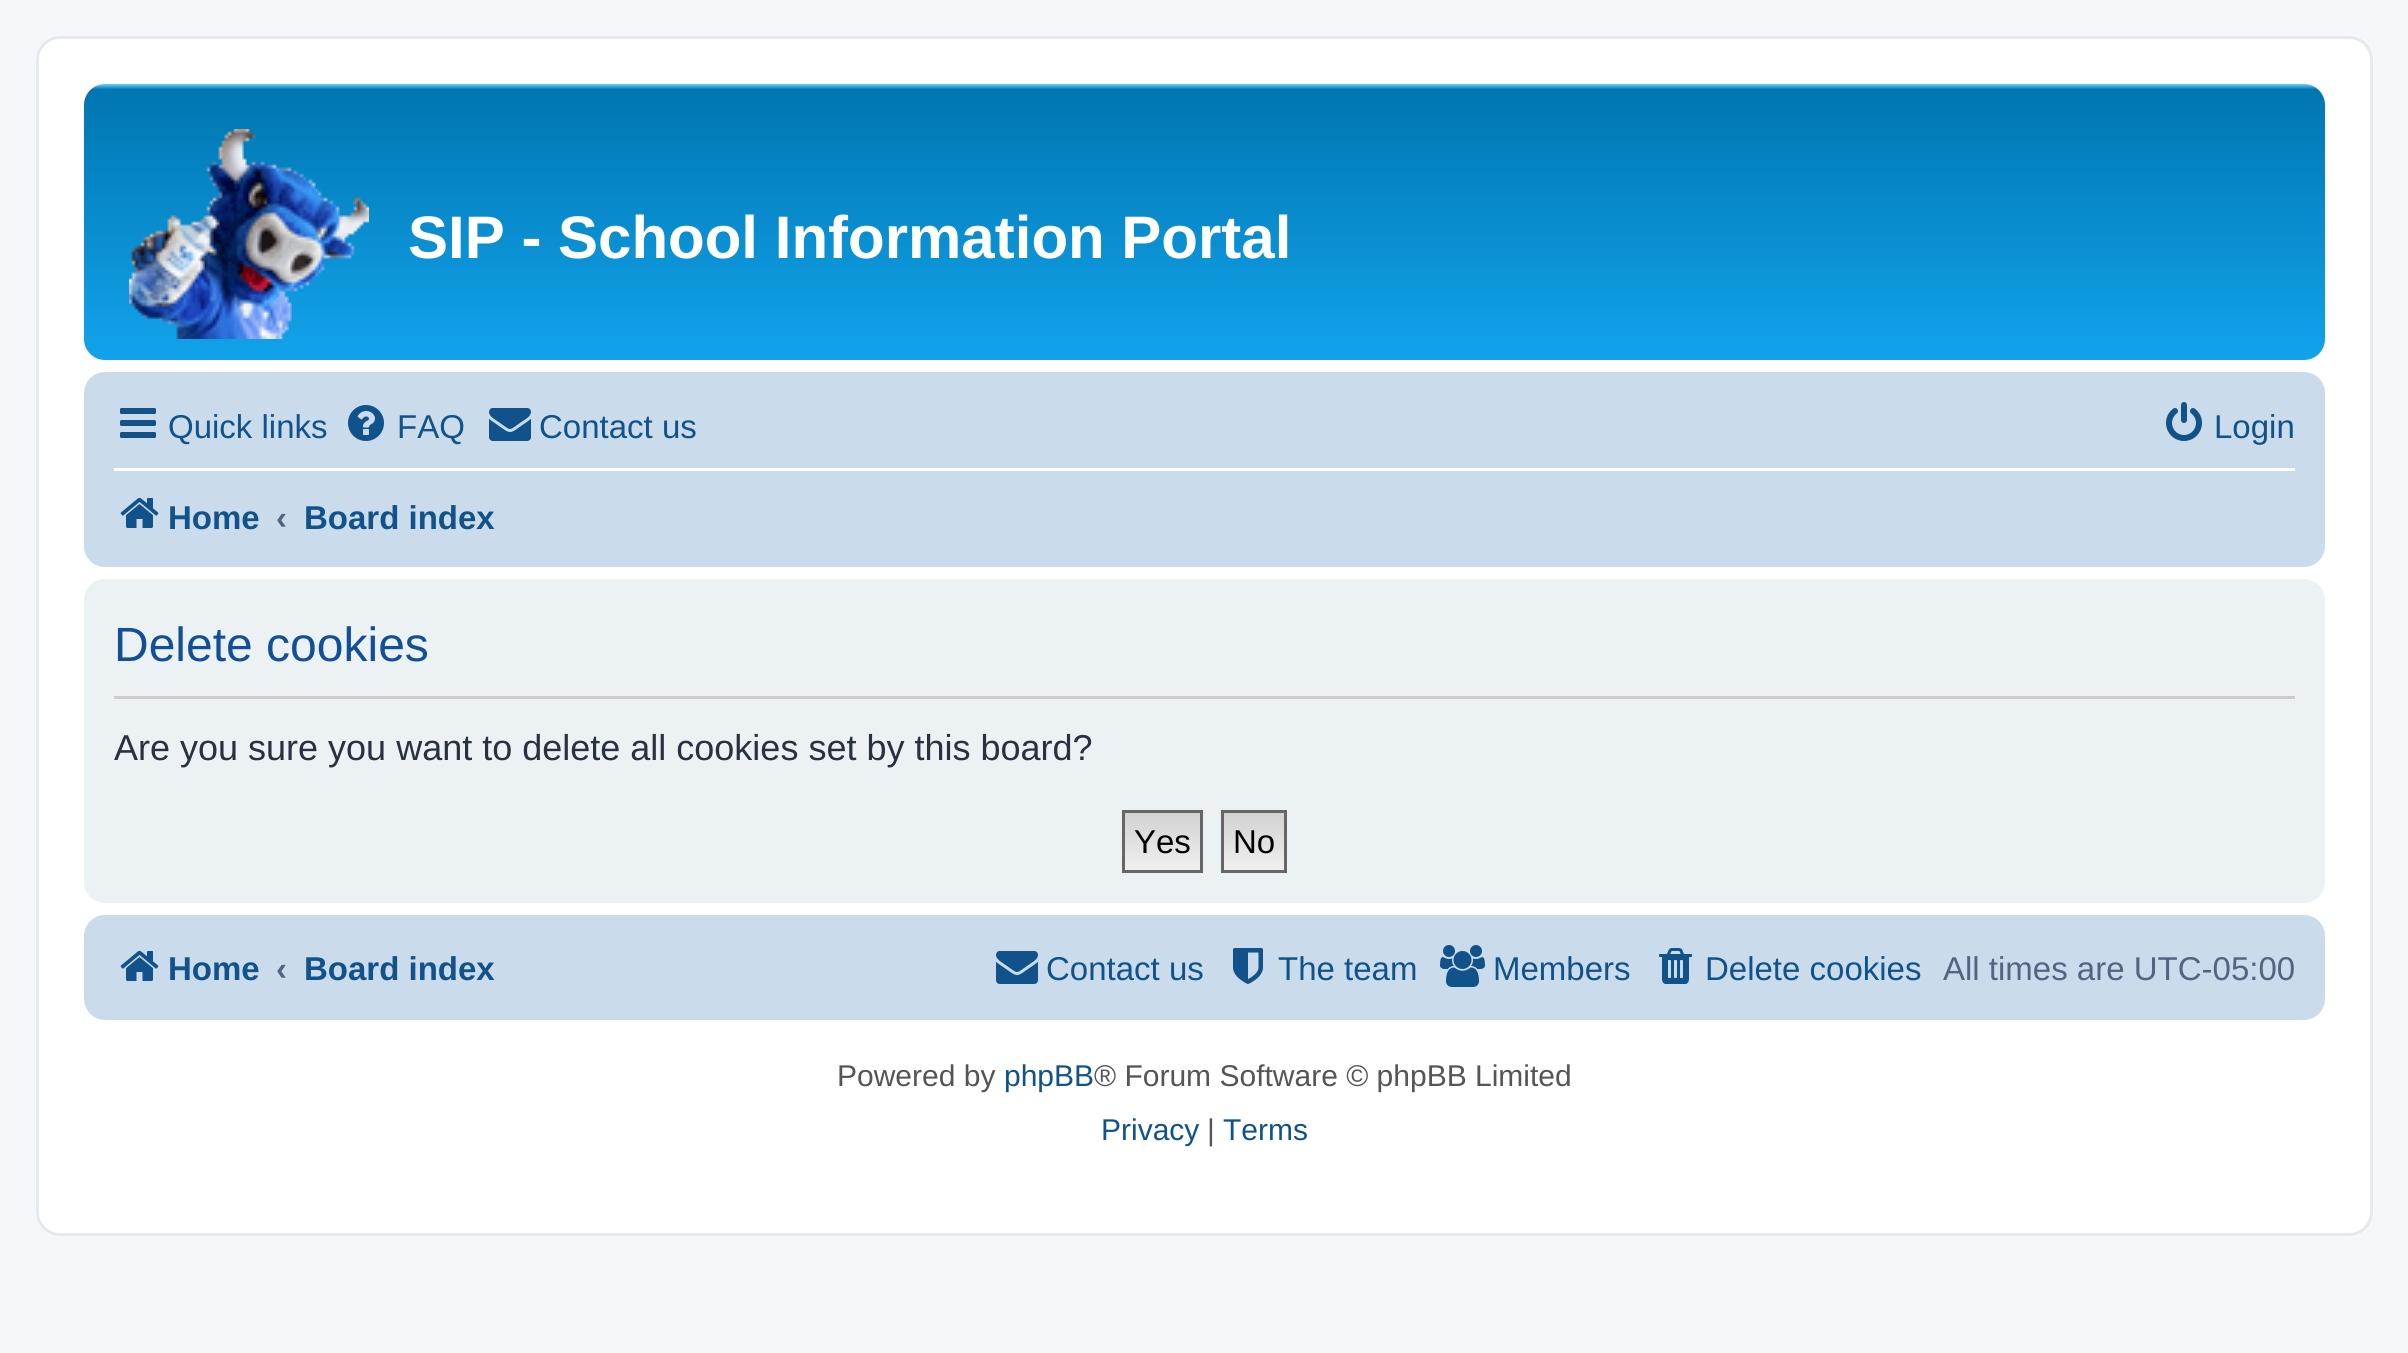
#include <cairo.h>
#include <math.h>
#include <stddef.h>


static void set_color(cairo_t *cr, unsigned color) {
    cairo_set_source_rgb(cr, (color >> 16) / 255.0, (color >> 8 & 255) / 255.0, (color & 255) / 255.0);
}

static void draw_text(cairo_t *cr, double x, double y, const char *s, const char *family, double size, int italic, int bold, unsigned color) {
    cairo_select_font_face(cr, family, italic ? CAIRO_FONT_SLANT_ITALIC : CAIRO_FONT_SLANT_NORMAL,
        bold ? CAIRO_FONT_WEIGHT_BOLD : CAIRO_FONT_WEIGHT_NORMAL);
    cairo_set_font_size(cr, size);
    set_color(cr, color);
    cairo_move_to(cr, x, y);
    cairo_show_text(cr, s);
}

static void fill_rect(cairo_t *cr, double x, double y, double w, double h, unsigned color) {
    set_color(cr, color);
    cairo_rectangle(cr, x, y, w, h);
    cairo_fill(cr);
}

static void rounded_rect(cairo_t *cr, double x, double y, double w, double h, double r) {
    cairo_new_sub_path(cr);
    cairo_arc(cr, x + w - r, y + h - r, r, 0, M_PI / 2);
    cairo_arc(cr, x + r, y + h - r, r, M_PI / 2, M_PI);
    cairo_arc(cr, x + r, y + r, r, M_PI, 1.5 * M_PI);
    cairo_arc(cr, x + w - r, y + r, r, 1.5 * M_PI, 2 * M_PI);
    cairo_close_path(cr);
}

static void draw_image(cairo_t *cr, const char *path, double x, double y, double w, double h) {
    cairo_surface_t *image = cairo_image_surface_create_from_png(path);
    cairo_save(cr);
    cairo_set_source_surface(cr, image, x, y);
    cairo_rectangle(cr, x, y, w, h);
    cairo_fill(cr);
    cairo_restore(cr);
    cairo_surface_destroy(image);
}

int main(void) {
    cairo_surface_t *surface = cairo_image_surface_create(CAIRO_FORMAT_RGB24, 2408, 1353);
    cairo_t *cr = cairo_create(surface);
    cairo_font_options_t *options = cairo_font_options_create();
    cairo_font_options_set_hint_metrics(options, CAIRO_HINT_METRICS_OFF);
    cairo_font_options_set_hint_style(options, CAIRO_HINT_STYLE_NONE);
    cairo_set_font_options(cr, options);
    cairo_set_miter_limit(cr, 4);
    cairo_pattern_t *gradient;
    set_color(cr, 0xF5F7FA);
    cairo_paint(cr);
    set_color(cr, 0xFFFFFF);
    rounded_rect(cr, 37.5, 37.5, 2334, 1197, 22.5);
    cairo_fill_preserve(cr);
    set_color(cr, 0xE6E9ED);
    cairo_set_line_width(cr, 3);
    cairo_stroke(cr);
    gradient = cairo_pattern_create_linear(1205, 84, 1205, 360);
    cairo_pattern_add_color_stop_rgba(gradient, 0, 0.416, 0.808, 1, 1);
    cairo_pattern_add_color_stop_rgba(gradient, 0.02, 0, 0.463, 0.694, 1);
    cairo_pattern_add_color_stop_rgba(gradient, 1, 0.071, 0.639, 0.922, 1);
    cairo_pattern_add_color_stop_rgba(gradient, 1, 0.071, 0.639, 0.922, 1);
    cairo_set_source(cr, gradient);
    cairo_pattern_destroy(gradient);
    rounded_rect(cr, 84, 84, 2241, 276, 21);
    cairo_fill(cr);
    draw_image(cr, "assets/img1.png", 129, 129, 240, 210);
    draw_text(cr, 408, 258, "SIP - School Information Portal", "Liberation Sans", 60, 0, 1, 0xFFFFFF);
    set_color(cr, 0xCADCEB);
    rounded_rect(cr, 84, 372, 2241, 195, 21);
    cairo_fill(cr);
    draw_image(cr, "assets/img2.png", 120, 408, 36, 30);
    draw_text(cr, 168, 438, "Quick links", "Liberation Sans", 33, 0, 0, 0x105289);
    draw_image(cr, "assets/img3.png", 348, 405, 36, 36);
    draw_text(cr, 397, 438, "FAQ", "Liberation Sans", 33, 0, 0, 0x105289);
    draw_image(cr, "assets/img4.png", 489, 408, 42, 33);
    draw_text(cr, 539, 438, "Contact us", "Liberation Sans", 33, 0, 0, 0x105289);
    draw_image(cr, "assets/img5.png", 2166, 402, 36, 39);
    draw_text(cr, 2214, 438, "Login", "Liberation Sans", 33, 0, 0, 0x105289);
    fill_rect(cr, 114, 468, 2181, 3, 0xFFFFFF);
    draw_image(cr, "assets/img6.png", 120, 497, 39, 31);
    draw_text(cr, 168, 529, "Home", "Liberation Sans", 33, 0, 1, 0x105289);
    draw_text(cr, 276, 529, "‹", "Liberation Sans", 33, 0, 1, 0x536482);
    draw_text(cr, 304, 529, "Board index", "Liberation Sans", 33, 0, 1, 0x105289);
    set_color(cr, 0xECF1F3);
    rounded_rect(cr, 84, 579, 2241, 324, 21);
    cairo_fill(cr);
    fill_rect(cr, 114, 696, 2181, 3, 0xCCCCCC);
    draw_text(cr, 114, 661, "Delete cookies", "Liberation Sans", 48, 0, 0, 0x115098);
    draw_text(cr, 114, 760, "Are you sure you want to delete all cookies set by this board?", "Liberation Sans", 36, 0, 0, 0x28313F);
    gradient = cairo_pattern_create_linear(1163, 813, 1163, 870);
    cairo_pattern_add_color_stop_rgba(gradient, 0, 0.824, 0.824, 0.824, 1);
    cairo_pattern_add_color_stop_rgba(gradient, 1, 0.937, 0.937, 0.937, 1);
    cairo_set_source(cr, gradient);
    cairo_pattern_destroy(gradient);
    cairo_rectangle(cr, 1125, 813, 75, 57);
    cairo_fill(cr);
    cairo_rectangle(cr, 1123.5, 811.5, 78, 60);
    set_color(cr, 0x666666);
    cairo_stroke(cr);
    draw_text(cr, 1134, 853, "Yes", "Liberation Sans", 33, 0, 0, 0x000000);
    gradient = cairo_pattern_create_linear(1254, 813, 1254, 870);
    cairo_pattern_add_color_stop_rgba(gradient, 0, 0.824, 0.824, 0.824, 1);
    cairo_pattern_add_color_stop_rgba(gradient, 1, 0.937, 0.937, 0.937, 1);
    cairo_set_source(cr, gradient);
    cairo_pattern_destroy(gradient);
    cairo_rectangle(cr, 1224, 813, 60, 57);
    cairo_fill(cr);
    cairo_rectangle(cr, 1222.5, 811.5, 63, 60);
    set_color(cr, 0x666666);
    cairo_stroke(cr);
    draw_text(cr, 1233, 853, "No", "Liberation Sans", 33, 0, 0, 0x000000);
    set_color(cr, 0xCADCEB);
    rounded_rect(cr, 84, 915, 2241, 105, 21);
    cairo_fill(cr);
    draw_image(cr, "assets/img6.png", 120, 950, 39, 31);
    draw_text(cr, 168, 980, "Home", "Liberation Sans", 33, 0, 1, 0x105289);
    draw_text(cr, 276, 980, "‹", "Liberation Sans", 33, 0, 1, 0x536482);
    draw_text(cr, 304, 980, "Board index", "Liberation Sans", 33, 0, 1, 0x105289);
    draw_image(cr, "assets/img4.png", 996, 951, 42, 33);
    draw_text(cr, 1046, 980, "Contact us", "Liberation Sans", 33, 0, 0, 0x105289);
    draw_image(cr, "assets/img7.png", 1233, 948, 30, 36);
    draw_text(cr, 1278, 980, "The team", "Liberation Sans", 33, 0, 0, 0x105289);
    draw_image(cr, "assets/img8.png", 1440, 945, 45, 42);
    draw_text(cr, 1493, 980, "Members", "Liberation Sans", 33, 0, 0, 0x105289);
    draw_image(cr, "assets/img9.png", 1659, 948, 33, 36);
    draw_text(cr, 1705, 980, "Delete cookies", "Liberation Sans", 33, 0, 0, 0x105289);
    draw_text(cr, 1943, 980, "All times are UTC-05:00", "Liberation Sans", 33, 0, 0, 0x536482);
    draw_text(cr, 837, 1086, "Powered by", "Liberation Sans", 30, 0, 0, 0x555555);
    draw_text(cr, 1004, 1086, "phpBB", "Liberation Sans", 30, 0, 0, 0x105289);
    draw_text(cr, 1094, 1086, "® Forum Software © phpBB Limited", "Liberation Sans", 30, 0, 0, 0x555555);
    draw_text(cr, 1101, 1140, "Privacy", "Liberation Sans", 30, 0, 0, 0x105289);
    draw_text(cr, 1207, 1140, "|", "Liberation Sans", 30, 0, 0, 0x555555);
    draw_text(cr, 1223, 1140, "Terms", "Liberation Sans", 30, 0, 0, 0x105289);
    cairo_surface_write_to_png(surface, "output.png");
    cairo_font_options_destroy(options);
    cairo_destroy(cr);
    cairo_surface_destroy(surface);
    return 0;
}
